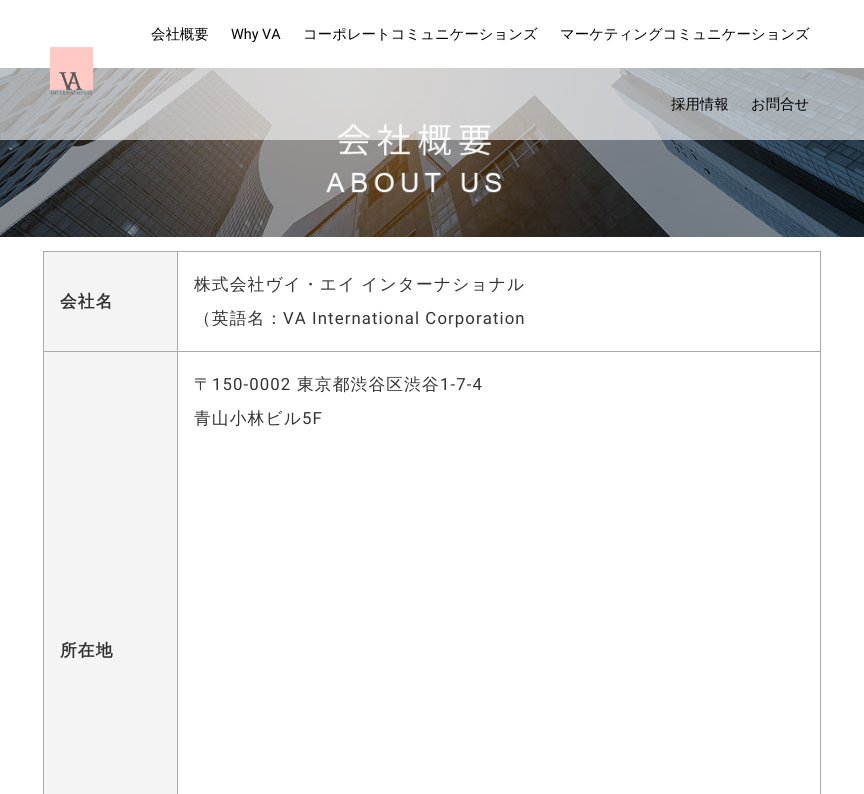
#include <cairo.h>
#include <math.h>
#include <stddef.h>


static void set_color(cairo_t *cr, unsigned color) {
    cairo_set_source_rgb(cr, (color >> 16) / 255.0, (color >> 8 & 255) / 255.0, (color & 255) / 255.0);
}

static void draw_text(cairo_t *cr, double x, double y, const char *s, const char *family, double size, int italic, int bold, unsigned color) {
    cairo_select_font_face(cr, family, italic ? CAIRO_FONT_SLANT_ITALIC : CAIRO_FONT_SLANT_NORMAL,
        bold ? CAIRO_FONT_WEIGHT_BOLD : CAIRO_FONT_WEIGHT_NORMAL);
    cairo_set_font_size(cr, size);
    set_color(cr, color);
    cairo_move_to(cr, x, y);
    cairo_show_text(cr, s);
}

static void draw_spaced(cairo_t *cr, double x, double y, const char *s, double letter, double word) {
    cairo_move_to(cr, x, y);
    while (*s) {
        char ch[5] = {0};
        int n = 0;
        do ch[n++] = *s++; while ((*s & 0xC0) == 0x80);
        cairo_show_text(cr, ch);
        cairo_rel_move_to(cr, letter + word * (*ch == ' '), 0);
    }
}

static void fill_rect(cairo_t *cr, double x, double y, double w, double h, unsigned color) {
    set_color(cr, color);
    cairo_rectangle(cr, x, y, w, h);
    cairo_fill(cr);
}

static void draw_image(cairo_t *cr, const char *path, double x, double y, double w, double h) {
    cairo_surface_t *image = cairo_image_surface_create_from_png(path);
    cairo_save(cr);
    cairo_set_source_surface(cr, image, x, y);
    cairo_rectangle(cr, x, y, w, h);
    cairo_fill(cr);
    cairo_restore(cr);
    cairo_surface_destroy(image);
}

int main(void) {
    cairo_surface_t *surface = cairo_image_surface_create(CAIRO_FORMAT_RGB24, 864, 794);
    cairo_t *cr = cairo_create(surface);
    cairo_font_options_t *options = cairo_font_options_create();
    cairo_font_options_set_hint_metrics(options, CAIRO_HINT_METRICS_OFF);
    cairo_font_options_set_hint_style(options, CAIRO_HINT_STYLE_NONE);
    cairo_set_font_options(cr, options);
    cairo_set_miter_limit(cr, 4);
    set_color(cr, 0xFFFFFF);
    cairo_paint(cr);
    draw_image(cr, "assets/img2.png", 0, 68, 864, 169);
    cairo_set_source_rgba(cr, 1, 1, 1, 0.6);
    cairo_rectangle(cr, 0, 68, 864, 72);
    cairo_fill(cr);
    draw_image(cr, "assets/img1.png", 49, 46, 44, 49);
    draw_text(cr, 151, 39, "会社概要", "WenQuanYi Zen Hei Medium", 14.4, 0, 0, 0x000000);
    draw_text(cr, 231, 39, "Why VA", "Roboto", 14.4, 0, 0, 0x000000);
    draw_text(cr, 303, 39, "コーポレートコミュニケーションズ", "WenQuanYi Zen Hei Medium", 14.4, 0, 0, 0x000000);
    draw_text(cr, 560, 39, "マーケティングコミュニケーションズ", "WenQuanYi Zen Hei Medium", 14.4, 0, 0, 0x000000);
    draw_text(cr, 671, 109, "採用情報", "WenQuanYi Zen Hei Medium", 14.4, 0, 0, 0x000000);
    draw_text(cr, 751, 109, "お問合せ", "WenQuanYi Zen Hei Medium", 14.4, 0, 0, 0x000000);
    fill_rect(cr, 44, 252, 133, 99, 0xF4F4F4);
    fill_rect(cr, 177, 251, 644, 1, 0xAAAAAA);
    fill_rect(cr, 177, 351, 644, 1, 0xAAAAAA);
    fill_rect(cr, 177, 351, 1, 443, 0xAAAAAA);
    fill_rect(cr, 43, 351, 135, 1, 0xAAAAAA);
    fill_rect(cr, 177, 251, 1, 101, 0xAAAAAA);
    fill_rect(cr, 43, 251, 135, 1, 0xAAAAAA);
    fill_rect(cr, 43, 351, 1, 443, 0xAAAAAA);
    fill_rect(cr, 43, 251, 1, 101, 0xAAAAAA);
    cairo_select_font_face(cr, "WenQuanYi Zen Hei", CAIRO_FONT_SLANT_NORMAL, CAIRO_FONT_WEIGHT_BOLD);
    cairo_set_font_size(cr, 16.75);
    set_color(cr, 0x333333);
    draw_spaced(cr, 60, 307, "会社名", 1.1, 0);
    fill_rect(cr, 820, 351, 1, 443, 0xAAAAAA);
    fill_rect(cr, 820, 251, 1, 101, 0xAAAAAA);
    cairo_select_font_face(cr, "WenQuanYi Zen Hei Medium", CAIRO_FONT_SLANT_NORMAL, CAIRO_FONT_WEIGHT_NORMAL);
    set_color(cr, 0x333333);
    draw_spaced(cr, 194, 290, "株式会社ヴイ・エイ インターナショナル", 1.1, -1);
    draw_spaced(cr, 194, 324, "（英語名：", 1.1, 0);
    cairo_select_font_face(cr, "Roboto", CAIRO_FONT_SLANT_NORMAL, CAIRO_FONT_WEIGHT_NORMAL);
    draw_spaced(cr, 283, 324, "VA International Corporation", 1.1, 0);
    cairo_select_font_face(cr, "WenQuanYi Zen Hei Medium", CAIRO_FONT_SLANT_NORMAL, CAIRO_FONT_WEIGHT_NORMAL);
    draw_spaced(cr, 194, 390, "〒", 1.1, 0);
    cairo_select_font_face(cr, "Roboto", CAIRO_FONT_SLANT_NORMAL, CAIRO_FONT_WEIGHT_NORMAL);
    draw_spaced(cr, 212, 390, "150-0002", 1.1, 0);
    cairo_select_font_face(cr, "WenQuanYi Zen Hei Medium", CAIRO_FONT_SLANT_NORMAL, CAIRO_FONT_WEIGHT_NORMAL);
    draw_spaced(cr, 297, 390, "東京都渋谷区渋谷", 1.1, 0);
    cairo_select_font_face(cr, "Roboto", CAIRO_FONT_SLANT_NORMAL, CAIRO_FONT_WEIGHT_NORMAL);
    draw_spaced(cr, 440, 390, "1-7-4", 1.1, 0);
    cairo_select_font_face(cr, "WenQuanYi Zen Hei Medium", CAIRO_FONT_SLANT_NORMAL, CAIRO_FONT_WEIGHT_NORMAL);
    draw_spaced(cr, 194, 424, "青山小林ビル", 1.1, 0);
    cairo_select_font_face(cr, "Roboto", CAIRO_FONT_SLANT_NORMAL, CAIRO_FONT_WEIGHT_NORMAL);
    draw_spaced(cr, 302, 424, "5F", 1.1, 0);
    fill_rect(cr, 44, 352, 133, 442, 0xF4F4F4);
    cairo_select_font_face(cr, "WenQuanYi Zen Hei", CAIRO_FONT_SLANT_NORMAL, CAIRO_FONT_WEIGHT_BOLD);
    set_color(cr, 0x333333);
    draw_spaced(cr, 60, 656, "所在地", 1.1, 0);
    cairo_surface_write_to_png(surface, "output.png");
    cairo_font_options_destroy(options);
    cairo_destroy(cr);
    cairo_surface_destroy(surface);
    return 0;
}
